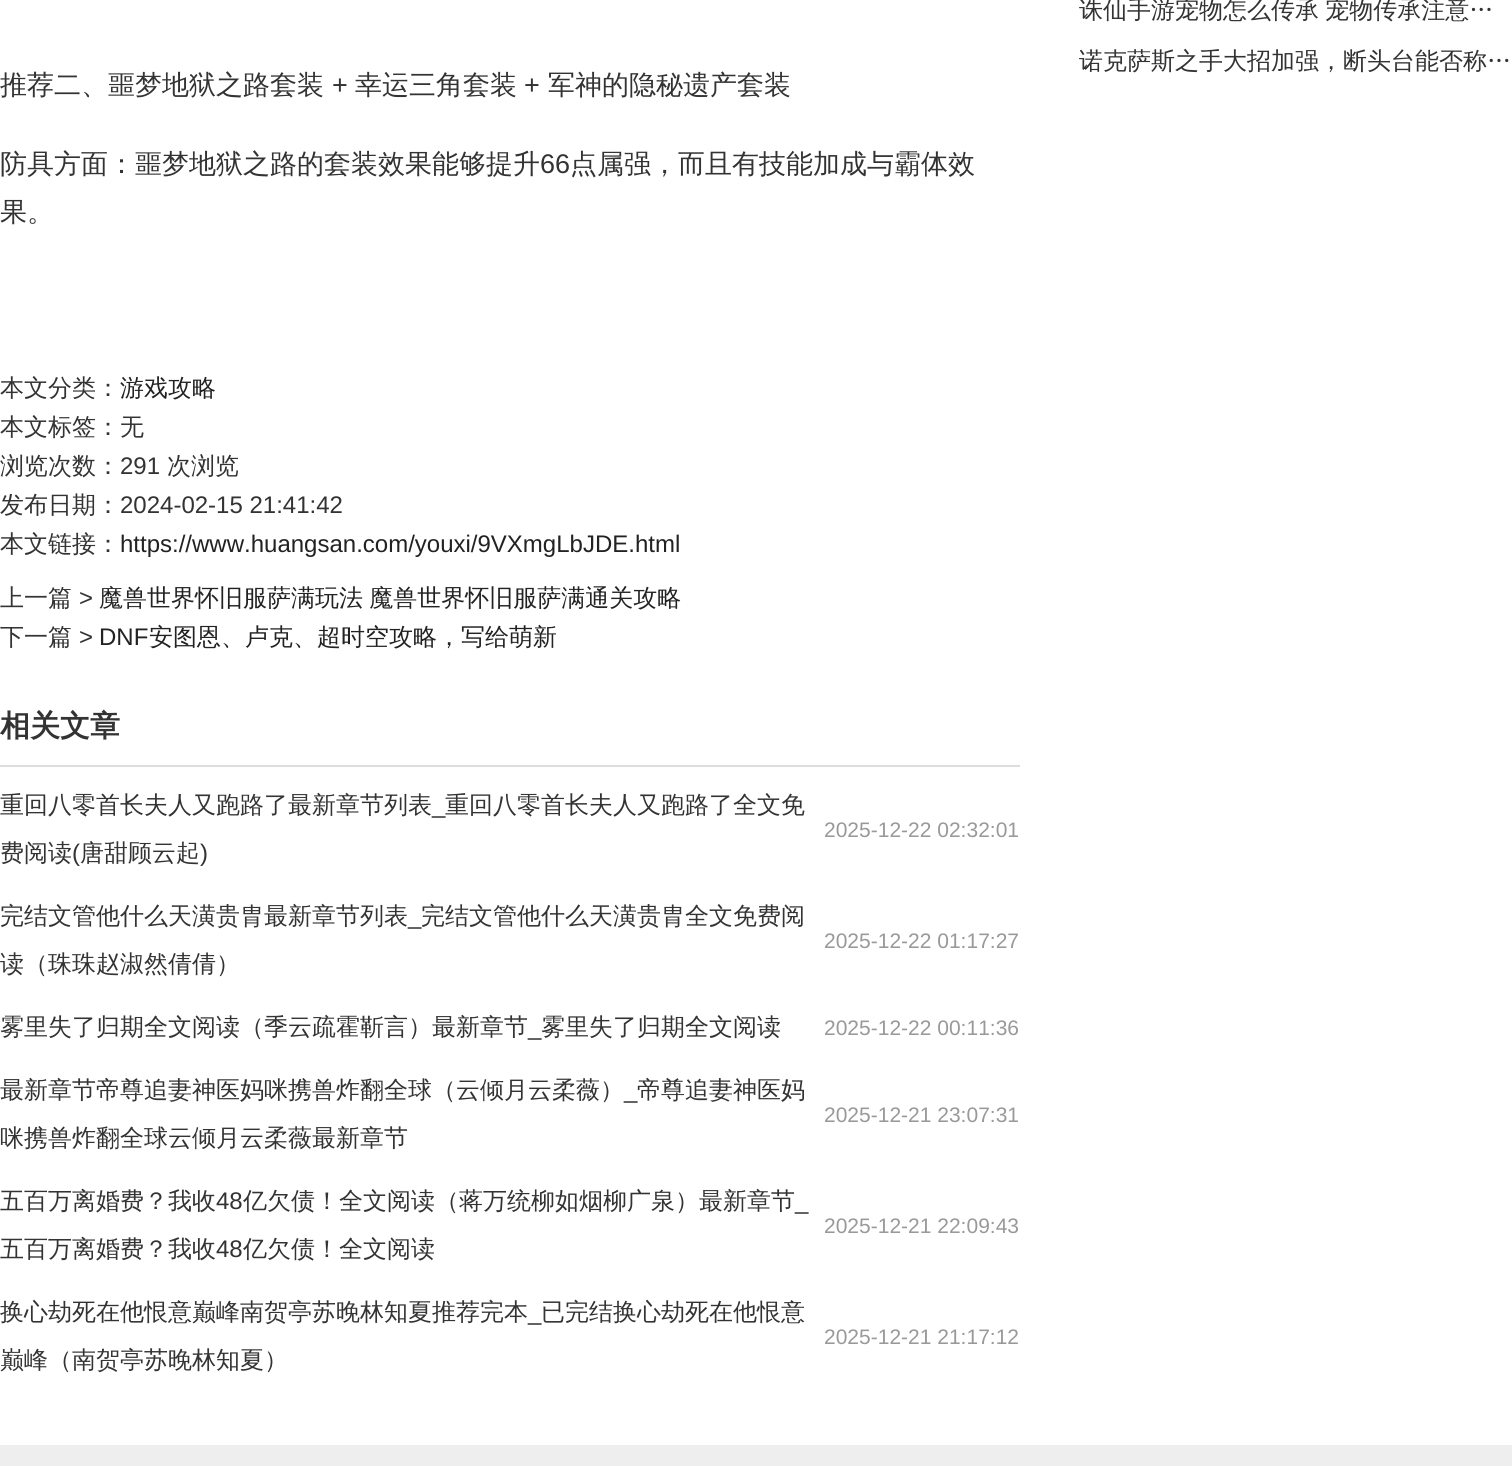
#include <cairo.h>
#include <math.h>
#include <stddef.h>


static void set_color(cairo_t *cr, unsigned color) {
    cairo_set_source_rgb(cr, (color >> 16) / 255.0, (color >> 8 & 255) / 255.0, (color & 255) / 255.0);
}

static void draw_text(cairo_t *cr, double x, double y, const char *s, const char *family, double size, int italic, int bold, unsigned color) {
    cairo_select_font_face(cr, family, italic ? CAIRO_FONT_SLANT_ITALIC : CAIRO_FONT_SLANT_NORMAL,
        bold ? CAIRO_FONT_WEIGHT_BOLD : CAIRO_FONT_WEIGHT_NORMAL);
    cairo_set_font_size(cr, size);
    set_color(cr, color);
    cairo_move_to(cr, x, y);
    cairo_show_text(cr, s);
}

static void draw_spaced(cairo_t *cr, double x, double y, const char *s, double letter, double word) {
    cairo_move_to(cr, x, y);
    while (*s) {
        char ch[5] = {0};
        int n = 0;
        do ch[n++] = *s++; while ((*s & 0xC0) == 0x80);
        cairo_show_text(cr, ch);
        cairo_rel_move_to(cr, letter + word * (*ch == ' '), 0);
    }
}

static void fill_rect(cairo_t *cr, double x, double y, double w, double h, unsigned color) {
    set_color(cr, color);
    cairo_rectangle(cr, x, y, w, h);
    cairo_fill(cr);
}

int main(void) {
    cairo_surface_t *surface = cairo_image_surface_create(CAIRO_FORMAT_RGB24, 1512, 1466);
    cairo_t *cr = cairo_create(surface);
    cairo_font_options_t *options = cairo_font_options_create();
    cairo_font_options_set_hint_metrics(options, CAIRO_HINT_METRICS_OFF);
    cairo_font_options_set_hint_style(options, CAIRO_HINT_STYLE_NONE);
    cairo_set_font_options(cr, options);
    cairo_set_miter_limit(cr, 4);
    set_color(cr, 0xFFFFFF);
    cairo_paint(cr);
    cairo_select_font_face(cr, "WenQuanYi Zen Hei Medium", CAIRO_FONT_SLANT_NORMAL, CAIRO_FONT_WEIGHT_NORMAL);
    cairo_set_font_size(cr, 24);
    set_color(cr, 0x333333);
    draw_spaced(cr, 1079, 18, "诛仙手游宠物怎么传承 宠物传承注意…", 0, -1);
    draw_text(cr, 1079, 69, "诺克萨斯之手大招加强，断头台能否称…", "WenQuanYi Zen Hei Medium", 24, 0, 0, 0x333333);
    draw_text(cr, 0, 94, "推荐二、噩梦地狱之路套装", "WenQuanYi Zen Hei Medium", 27, 0, 0, 0x333333);
    draw_text(cr, 332, 94, "+", "Liberation Sans", 27, 0, 0, 0x333333);
    draw_text(cr, 355, 94, "幸运三角套装", "WenQuanYi Zen Hei Medium", 27, 0, 0, 0x333333);
    draw_text(cr, 524, 94, "+", "Liberation Sans", 27, 0, 0, 0x333333);
    draw_text(cr, 548, 94, "军神的隐秘遗产套装", "WenQuanYi Zen Hei Medium", 27, 0, 0, 0x333333);
    draw_text(cr, 0, 173, "防具方面：噩梦地狱之路的套装效果能够提升", "WenQuanYi Zen Hei Medium", 27, 0, 0, 0x333333);
    draw_text(cr, 540, 173, "66", "Liberation Sans", 27, 0, 0, 0x333333);
    draw_text(cr, 570, 173, "点属强，而且有技能加成与霸体效", "WenQuanYi Zen Hei Medium", 27, 0, 0, 0x333333);
    draw_text(cr, 0, 221, "果。", "WenQuanYi Zen Hei Medium", 27, 0, 0, 0x333333);
    draw_text(cr, 0, 396, "本文分类：", "WenQuanYi Zen Hei Medium", 24, 0, 0, 0x333333);
    draw_text(cr, 120, 396, "游戏攻略", "WenQuanYi Zen Hei Medium", 24, 0, 0, 0x222222);
    draw_text(cr, 0, 435, "本文标签：无", "WenQuanYi Zen Hei Medium", 24, 0, 0, 0x333333);
    draw_text(cr, 0, 474, "浏览次数：", "WenQuanYi Zen Hei Medium", 24, 0, 0, 0x333333);
    draw_text(cr, 120, 474, "291", "Liberation Sans", 24, 0, 0, 0x333333);
    draw_text(cr, 167, 474, "次浏览", "WenQuanYi Zen Hei Medium", 24, 0, 0, 0x333333);
    draw_text(cr, 0, 513, "发布日期：", "WenQuanYi Zen Hei Medium", 24, 0, 0, 0x333333);
    draw_text(cr, 120, 513, "2024-02-15 21:41:42", "Liberation Sans", 24, 0, 0, 0x333333);
    draw_text(cr, 0, 552, "本文链接：", "WenQuanYi Zen Hei Medium", 24, 0, 0, 0x333333);
    draw_text(cr, 120, 552, "https://www.huangsan.com/youxi/9VXmgLbJDE.html", "Liberation Sans", 24, 0, 0, 0x222222);
    draw_text(cr, 0, 606, "上一篇", "WenQuanYi Zen Hei Medium", 24, 0, 0, 0x333333);
    draw_text(cr, 79, 606, ">", "Liberation Sans", 24, 0, 0, 0x333333);
    cairo_select_font_face(cr, "WenQuanYi Zen Hei Medium", CAIRO_FONT_SLANT_NORMAL, CAIRO_FONT_WEIGHT_NORMAL);
    set_color(cr, 0x222222);
    draw_spaced(cr, 99, 606, "魔兽世界怀旧服萨满玩法 魔兽世界怀旧服萨满通关攻略", 0, -1);
    draw_text(cr, 0, 645, "下一篇", "WenQuanYi Zen Hei Medium", 24, 0, 0, 0x333333);
    draw_text(cr, 79, 645, ">", "Liberation Sans", 24, 0, 0, 0x333333);
    draw_text(cr, 99, 645, "DNF", "Liberation Sans", 24, 0, 0, 0x222222);
    draw_text(cr, 149, 645, "安图恩、卢克、超时空攻略，写给萌新", "WenQuanYi Zen Hei Medium", 24, 0, 0, 0x222222);
    fill_rect(cr, 0, 765, 1020, 2, 0xDDDDDD);
    draw_text(cr, 0, 736, "相关文章", "WenQuanYi Zen Hei", 30, 0, 1, 0x333333);
    draw_text(cr, 0, 813, "重回八零首长夫人又跑路了最新章节列表", "WenQuanYi Zen Hei Medium", 24, 0, 0, 0x333333);
    draw_text(cr, 432, 813, "_", "Liberation Sans", 24, 0, 0, 0x333333);
    draw_text(cr, 445, 813, "重回八零首长夫人又跑路了全文免", "WenQuanYi Zen Hei Medium", 24, 0, 0, 0x333333);
    draw_text(cr, 0, 861, "费阅读", "WenQuanYi Zen Hei Medium", 24, 0, 0, 0x333333);
    draw_text(cr, 72, 861, "(", "Liberation Sans", 24, 0, 0, 0x333333);
    draw_text(cr, 80, 861, "唐甜顾云起", "WenQuanYi Zen Hei Medium", 24, 0, 0, 0x333333);
    draw_text(cr, 200, 861, ")", "Liberation Sans", 24, 0, 0, 0x333333);
    draw_text(cr, 824, 837, "2025-12-22 02:32:01", "Liberation Sans", 21, 0, 0, 0x999999);
    draw_text(cr, 0, 924, "完结文管他什么天潢贵胄最新章节列表", "WenQuanYi Zen Hei Medium", 24, 0, 0, 0x333333);
    draw_text(cr, 408, 924, "_", "Liberation Sans", 24, 0, 0, 0x333333);
    draw_text(cr, 421, 924, "完结文管他什么天潢贵胄全文免费阅", "WenQuanYi Zen Hei Medium", 24, 0, 0, 0x333333);
    draw_text(cr, 0, 972, "读（珠珠赵淑然倩倩）", "WenQuanYi Zen Hei Medium", 24, 0, 0, 0x333333);
    draw_text(cr, 824, 948, "2025-12-22 01:17:27", "Liberation Sans", 21, 0, 0, 0x999999);
    draw_text(cr, 0, 1035, "雾里失了归期全文阅读（季云疏霍靳言）最新章节", "WenQuanYi Zen Hei Medium", 24, 0, 0, 0x333333);
    draw_text(cr, 528, 1035, "_", "Liberation Sans", 24, 0, 0, 0x333333);
    draw_text(cr, 541, 1035, "雾里失了归期全文阅读", "WenQuanYi Zen Hei Medium", 24, 0, 0, 0x333333);
    draw_text(cr, 824, 1035, "2025-12-22 00:11:36", "Liberation Sans", 21, 0, 0, 0x999999);
    draw_text(cr, 0, 1098, "最新章节帝尊追妻神医妈咪携兽炸翻全球（云倾月云柔薇）", "WenQuanYi Zen Hei Medium", 24, 0, 0, 0x333333);
    draw_text(cr, 624, 1098, "_", "Liberation Sans", 24, 0, 0, 0x333333);
    draw_text(cr, 637, 1098, "帝尊追妻神医妈", "WenQuanYi Zen Hei Medium", 24, 0, 0, 0x333333);
    draw_text(cr, 0, 1146, "咪携兽炸翻全球云倾月云柔薇最新章节", "WenQuanYi Zen Hei Medium", 24, 0, 0, 0x333333);
    draw_text(cr, 824, 1122, "2025-12-21 23:07:31", "Liberation Sans", 21, 0, 0, 0x999999);
    draw_text(cr, 0, 1209, "五百万离婚费？我收", "WenQuanYi Zen Hei Medium", 24, 0, 0, 0x333333);
    draw_text(cr, 216, 1209, "48", "Liberation Sans", 24, 0, 0, 0x333333);
    draw_text(cr, 243, 1209, "亿欠债！全文阅读（蒋万统柳如烟柳广泉）最新章节", "WenQuanYi Zen Hei Medium", 24, 0, 0, 0x333333);
    draw_text(cr, 795, 1209, "_", "Liberation Sans", 24, 0, 0, 0x333333);
    draw_text(cr, 0, 1257, "五百万离婚费？我收", "WenQuanYi Zen Hei Medium", 24, 0, 0, 0x333333);
    draw_text(cr, 216, 1257, "48", "Liberation Sans", 24, 0, 0, 0x333333);
    draw_text(cr, 243, 1257, "亿欠债！全文阅读", "WenQuanYi Zen Hei Medium", 24, 0, 0, 0x333333);
    draw_text(cr, 824, 1233, "2025-12-21 22:09:43", "Liberation Sans", 21, 0, 0, 0x999999);
    draw_text(cr, 0, 1320, "换心劫死在他恨意巅峰南贺亭苏晚林知夏推荐完本", "WenQuanYi Zen Hei Medium", 24, 0, 0, 0x333333);
    draw_text(cr, 528, 1320, "_", "Liberation Sans", 24, 0, 0, 0x333333);
    draw_text(cr, 541, 1320, "已完结换心劫死在他恨意", "WenQuanYi Zen Hei Medium", 24, 0, 0, 0x333333);
    draw_text(cr, 0, 1368, "巅峰（南贺亭苏晚林知夏）", "WenQuanYi Zen Hei Medium", 24, 0, 0, 0x333333);
    draw_text(cr, 824, 1344, "2025-12-21 21:17:12", "Liberation Sans", 21, 0, 0, 0x999999);
    fill_rect(cr, 0, 1445, 1512, 21, 0xEEEEEE);
    cairo_surface_write_to_png(surface, "output.png");
    cairo_font_options_destroy(options);
    cairo_destroy(cr);
    cairo_surface_destroy(surface);
    return 0;
}
